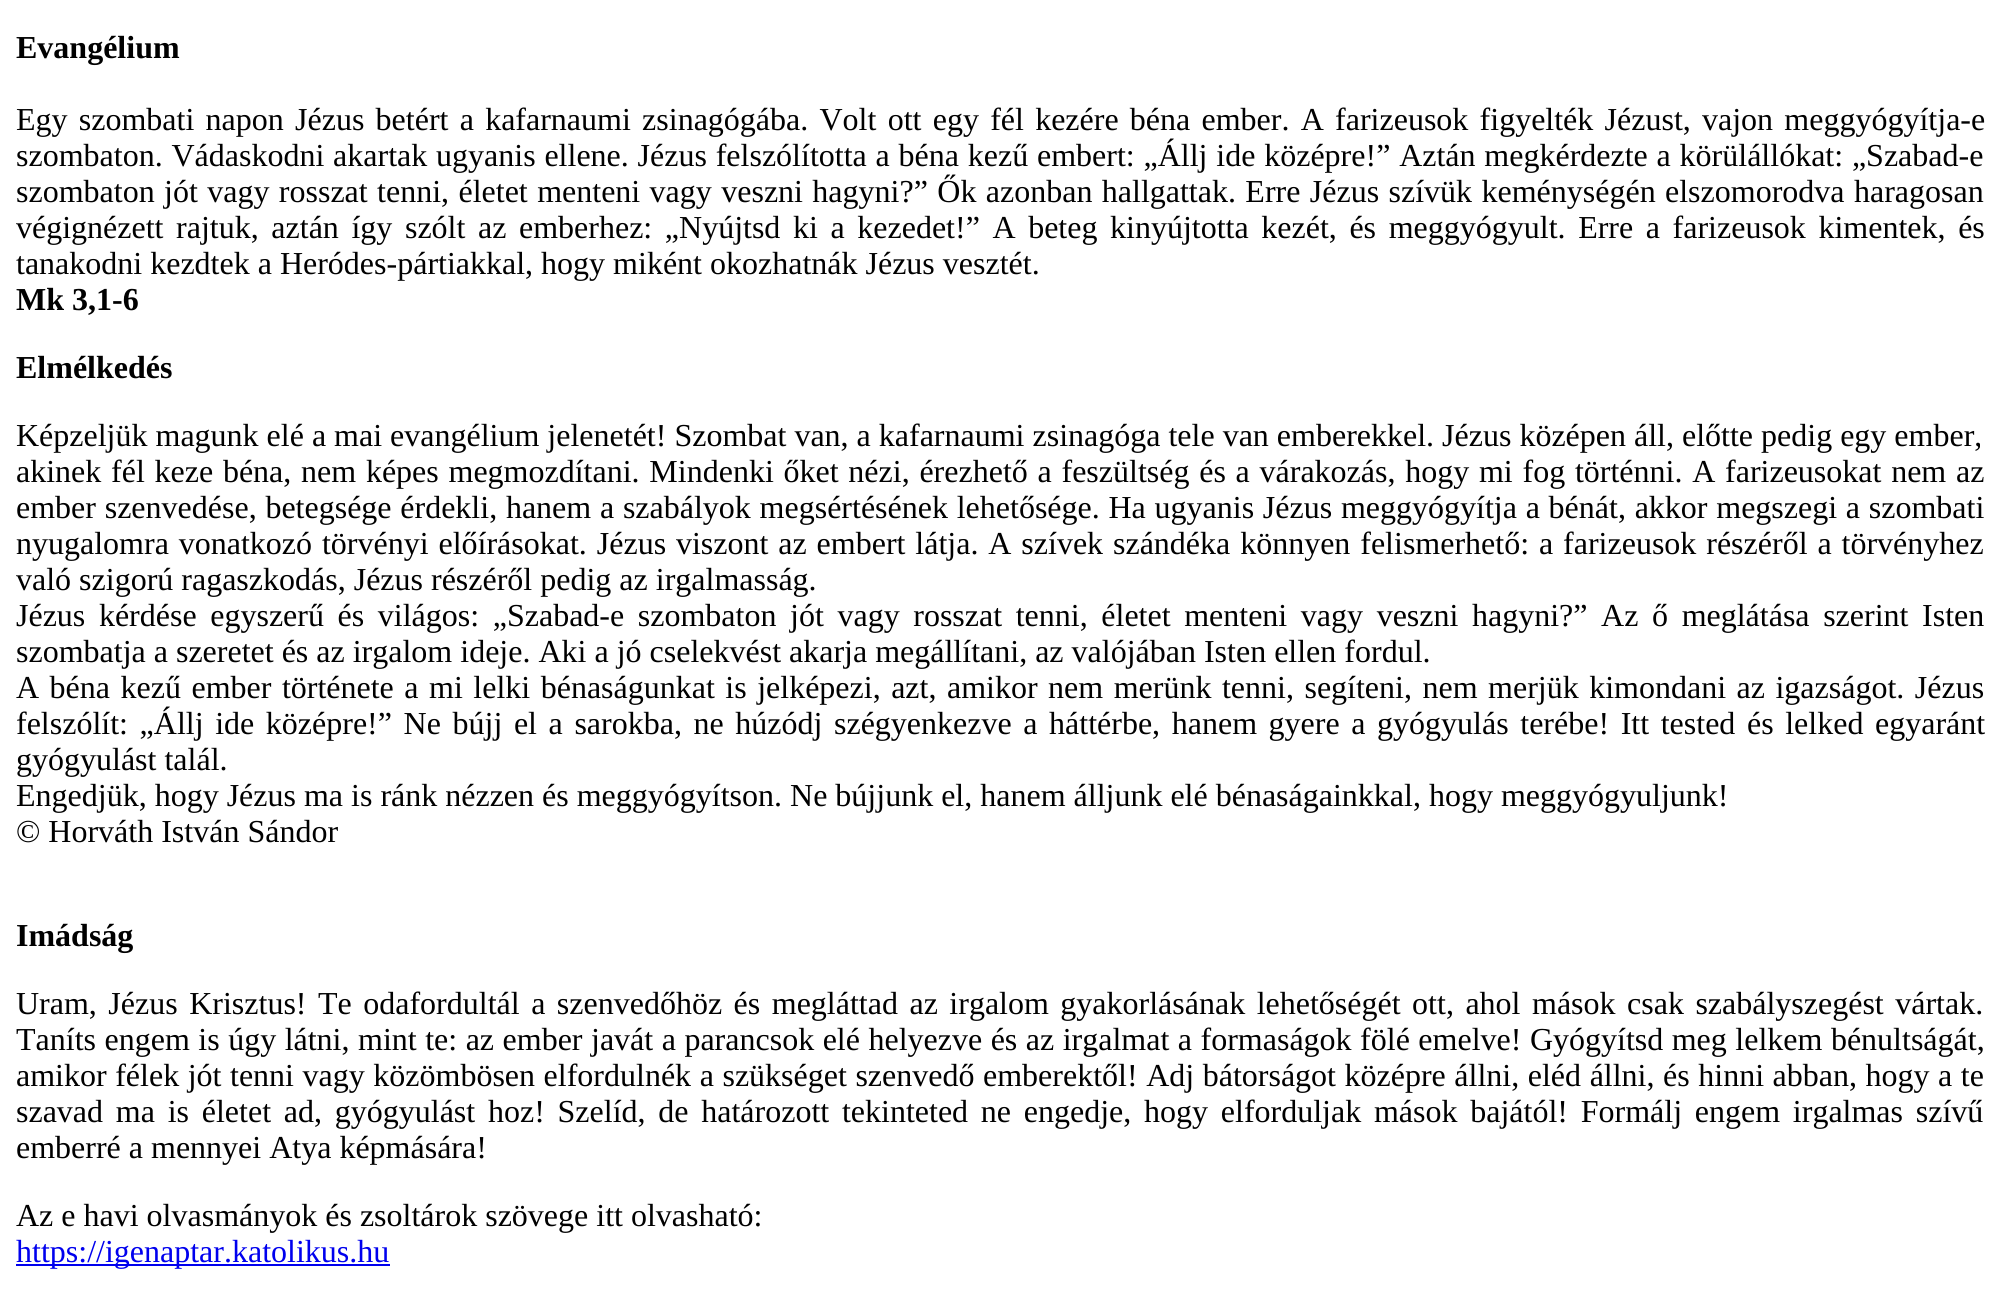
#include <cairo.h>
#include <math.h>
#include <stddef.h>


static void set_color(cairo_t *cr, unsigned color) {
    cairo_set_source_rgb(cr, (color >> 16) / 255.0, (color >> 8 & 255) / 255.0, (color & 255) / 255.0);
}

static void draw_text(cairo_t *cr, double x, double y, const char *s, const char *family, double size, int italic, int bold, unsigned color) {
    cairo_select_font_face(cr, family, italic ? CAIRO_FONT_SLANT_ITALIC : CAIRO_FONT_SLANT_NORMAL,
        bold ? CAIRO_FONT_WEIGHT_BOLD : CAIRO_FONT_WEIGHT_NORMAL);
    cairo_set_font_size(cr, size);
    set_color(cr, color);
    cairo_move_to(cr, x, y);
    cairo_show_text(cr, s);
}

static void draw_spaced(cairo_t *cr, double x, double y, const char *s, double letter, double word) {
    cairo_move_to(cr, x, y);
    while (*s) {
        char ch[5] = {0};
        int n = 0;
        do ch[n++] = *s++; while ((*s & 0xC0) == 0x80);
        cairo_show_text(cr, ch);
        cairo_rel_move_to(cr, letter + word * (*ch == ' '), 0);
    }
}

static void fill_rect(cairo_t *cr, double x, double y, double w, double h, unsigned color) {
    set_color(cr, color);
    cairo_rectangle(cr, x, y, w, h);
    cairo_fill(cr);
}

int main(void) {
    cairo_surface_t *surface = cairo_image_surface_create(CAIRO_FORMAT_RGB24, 2000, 1308);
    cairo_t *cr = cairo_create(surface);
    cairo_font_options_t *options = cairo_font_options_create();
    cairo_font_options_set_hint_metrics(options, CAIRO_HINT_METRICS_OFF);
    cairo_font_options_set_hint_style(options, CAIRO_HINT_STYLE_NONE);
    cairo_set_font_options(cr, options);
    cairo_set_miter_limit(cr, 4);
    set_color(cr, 0xFFFFFF);
    cairo_paint(cr);
    draw_text(cr, 16, 58, "Evangélium", "Liberation Serif", 32, 0, 1, 0x000000);
    cairo_select_font_face(cr, "Liberation Serif", CAIRO_FONT_SLANT_NORMAL, CAIRO_FONT_WEIGHT_NORMAL);
    draw_spaced(cr, 16, 130, "Egy szombati napon Jézus betért a kafarnaumi zsinagógába. Volt ott egy fél kezére béna ember. A farizeusok figyelték Jézust, vajon meggyógyítja-e", 0, 3.25);
    draw_spaced(cr, 16, 166, "szombaton. Vádaskodni akartak ugyanis ellene. Jézus felszólította a béna kezű embert: „Állj ide középre!” Aztán megkérdezte a körülállókat: „Szabad-e", 0, 0.8);
    draw_spaced(cr, 16, 202, "szombaton jót vagy rosszat tenni, életet menteni vagy veszni hagyni?” Ők azonban hallgattak. Erre Jézus szívük keménységén elszomorodva haragosan", 0, 1.4);
    draw_spaced(cr, 16, 238, "végignézett rajtuk, aztán így szólt az emberhez: „Nyújtsd ki a kezedet!” A beteg kinyújtotta kezét, és meggyógyult. Erre a farizeusok kimentek, és", 0, 4.6);
    draw_text(cr, 16, 274, "tanakodni kezdtek a Heródes-pártiakkal, hogy miként okozhatnák Jézus vesztét.", "Liberation Serif", 32, 0, 0, 0x000000);
    draw_text(cr, 16, 310, "Mk 3,1-6", "Liberation Serif", 32, 0, 1, 0x000000);
    draw_text(cr, 16, 378, "Elmélkedés", "Liberation Serif", 32, 0, 1, 0x000000);
    draw_text(cr, 16, 446, "Képzeljük magunk elé a mai evangélium jelenetét! Szombat van, a kafarnaumi zsinagóga tele van emberekkel. Jézus középen áll, előtte pedig egy ember,", "Liberation Serif", 32, 0, 0, 0x000000);
    draw_spaced(cr, 16, 482, "akinek fél keze béna, nem képes megmozdítani. Mindenki őket nézi, érezhető a feszültség és a várakozás, hogy mi fog történni. A farizeusokat nem az", 0, 1.75);
    draw_spaced(cr, 16, 518, "ember szenvedése, betegsége érdekli, hanem a szabályok megsértésének lehetősége. Ha ugyanis Jézus meggyógyítja a bénát, akkor megszegi a szombati", 0, 0.75);
    draw_spaced(cr, 16, 554, "nyugalomra vonatkozó törvényi előírásokat. Jézus viszont az embert látja. A szívek szándéka könnyen felismerhető: a farizeusok részéről a törvényhez", 0, 1.9);
    draw_text(cr, 16, 590, "való szigorú ragaszkodás, Jézus részéről pedig az irgalmasság.", "Liberation Serif", 32, 0, 0, 0x000000);
    draw_spaced(cr, 16, 626, "Jézus kérdése egyszerű és világos: „Szabad-e szombaton jót vagy rosszat tenni, életet menteni vagy veszni hagyni?” Az ő meglátása szerint Isten", 0, 5.6);
    draw_text(cr, 16, 662, "szombatja a szeretet és az irgalom ideje. Aki a jó cselekvést akarja megállítani, az valójában Isten ellen fordul.", "Liberation Serif", 32, 0, 0, 0x000000);
    draw_spaced(cr, 16, 698, "A béna kezű ember története a mi lelki bénaságunkat is jelképezi, azt, amikor nem merünk tenni, segíteni, nem merjük kimondani az igazságot. Jézus", 0, 2.5);
    draw_spaced(cr, 16, 734, "felszólít: „Állj ide középre!” Ne bújj el a sarokba, ne húzódj szégyenkezve a háttérbe, hanem gyere a gyógyulás terébe! Itt tested és lelked egyaránt", 0, 3.6);
    draw_text(cr, 16, 770, "gyógyulást talál.", "Liberation Serif", 32, 0, 0, 0x000000);
    draw_text(cr, 16, 806, "Engedjük, hogy Jézus ma is ránk nézzen és meggyógyítson. Ne bújjunk el, hanem álljunk elé bénaságainkkal, hogy meggyógyuljunk!", "Liberation Serif", 32, 0, 0, 0x000000);
    draw_text(cr, 16, 842, "© Horváth István Sándor", "Liberation Serif", 32, 0, 0, 0x000000);
    draw_text(cr, 16, 946, "Imádság", "Liberation Serif", 32, 0, 1, 0x000000);
    cairo_select_font_face(cr, "Liberation Serif", CAIRO_FONT_SLANT_NORMAL, CAIRO_FONT_WEIGHT_NORMAL);
    draw_spaced(cr, 16, 1014, "Uram, Jézus Krisztus! Te odafordultál a szenvedőhöz és megláttad az irgalom gyakorlásának lehetőségét ott, ahol mások csak szabályszegést vártak.", 0, 3.5);
    draw_spaced(cr, 16, 1050, "Taníts engem is úgy látni, mint te: az ember javát a parancsok elé helyezve és az irgalmat a formaságok fölé emelve! Gyógyítsd meg lelkem bénultságát,", 0, 0.5);
    draw_spaced(cr, 16, 1086, "amikor félek jót tenni vagy közömbösen elfordulnék a szükséget szenvedő emberektől! Adj bátorságot középre állni, eléd állni, és hinni abban, hogy a te", 0, 0.55);
    draw_spaced(cr, 16, 1122, "szavad ma is életet ad, gyógyulást hoz! Szelíd, de határozott tekinteted ne engedje, hogy elforduljak mások bajától! Formálj engem irgalmas szívű", 0, 4.75);
    draw_text(cr, 16, 1158, "emberré a mennyei Atya képmására!", "Liberation Serif", 32, 0, 0, 0x000000);
    draw_text(cr, 16, 1226, "Az e havi olvasmányok és zsoltárok szövege itt olvasható:", "Liberation Serif", 32, 0, 0, 0x000000);
    fill_rect(cr, 16, 1264, 374, 2, 0x0000EE);
    draw_text(cr, 16, 1262, "https://igenaptar.katolikus.hu", "Liberation Serif", 32, 0, 0, 0x0000EE);
    cairo_surface_write_to_png(surface, "output.png");
    cairo_font_options_destroy(options);
    cairo_destroy(cr);
    cairo_surface_destroy(surface);
    return 0;
}
